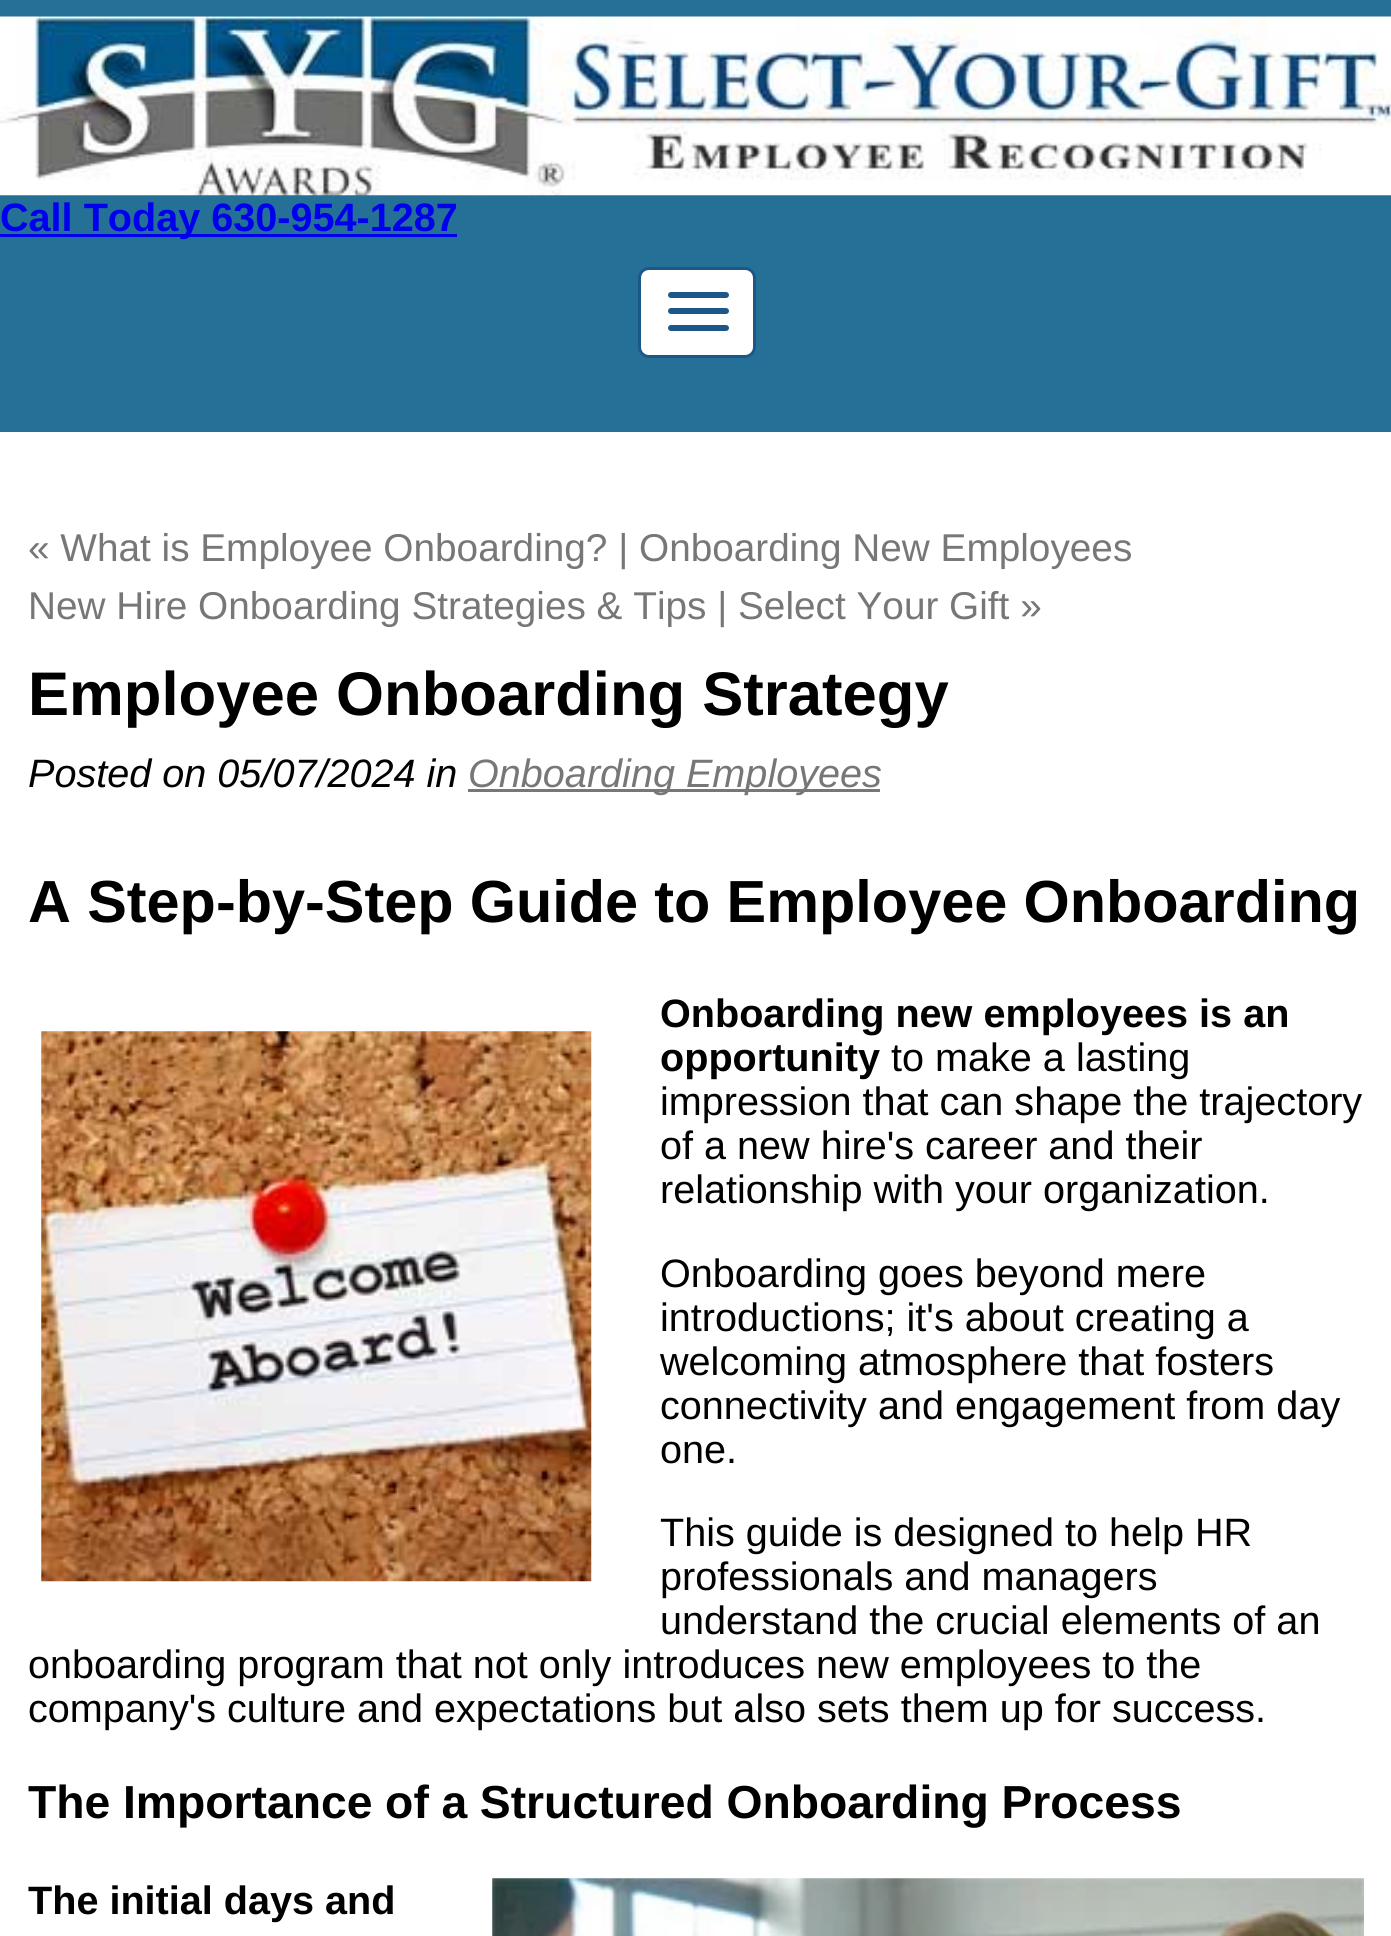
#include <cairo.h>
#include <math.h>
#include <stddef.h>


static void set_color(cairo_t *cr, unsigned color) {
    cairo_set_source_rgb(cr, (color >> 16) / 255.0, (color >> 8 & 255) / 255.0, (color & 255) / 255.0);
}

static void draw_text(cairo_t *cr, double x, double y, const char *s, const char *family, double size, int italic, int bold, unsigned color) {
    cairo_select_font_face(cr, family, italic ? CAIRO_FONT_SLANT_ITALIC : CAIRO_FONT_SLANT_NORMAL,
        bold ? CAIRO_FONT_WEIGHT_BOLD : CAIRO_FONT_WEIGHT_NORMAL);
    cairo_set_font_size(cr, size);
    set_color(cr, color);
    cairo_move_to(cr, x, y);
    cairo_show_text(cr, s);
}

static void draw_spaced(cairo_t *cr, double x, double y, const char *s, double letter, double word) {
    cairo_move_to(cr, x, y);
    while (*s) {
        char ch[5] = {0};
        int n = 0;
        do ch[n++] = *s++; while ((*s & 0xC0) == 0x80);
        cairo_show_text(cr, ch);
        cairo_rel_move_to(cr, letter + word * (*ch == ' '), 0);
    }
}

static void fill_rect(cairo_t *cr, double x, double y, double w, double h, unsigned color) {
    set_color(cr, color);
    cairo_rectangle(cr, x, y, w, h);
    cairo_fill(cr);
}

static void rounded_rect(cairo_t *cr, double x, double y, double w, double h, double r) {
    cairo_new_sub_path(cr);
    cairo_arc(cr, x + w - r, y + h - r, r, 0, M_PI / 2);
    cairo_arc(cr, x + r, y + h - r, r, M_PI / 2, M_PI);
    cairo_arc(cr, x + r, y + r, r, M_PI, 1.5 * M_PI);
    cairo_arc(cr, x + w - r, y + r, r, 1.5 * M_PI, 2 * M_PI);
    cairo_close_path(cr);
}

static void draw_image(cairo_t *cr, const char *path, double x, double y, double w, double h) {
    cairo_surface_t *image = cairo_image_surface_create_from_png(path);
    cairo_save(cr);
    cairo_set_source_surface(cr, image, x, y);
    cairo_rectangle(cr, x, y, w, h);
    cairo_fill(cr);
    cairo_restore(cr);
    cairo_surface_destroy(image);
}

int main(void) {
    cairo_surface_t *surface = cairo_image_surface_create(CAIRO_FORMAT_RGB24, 1391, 1936);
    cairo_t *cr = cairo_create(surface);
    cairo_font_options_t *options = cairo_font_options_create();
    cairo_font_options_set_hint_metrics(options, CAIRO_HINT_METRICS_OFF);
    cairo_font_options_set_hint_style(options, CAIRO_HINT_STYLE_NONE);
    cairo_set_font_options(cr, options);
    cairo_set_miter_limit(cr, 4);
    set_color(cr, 0x257096);
    cairo_paint(cr);
    draw_image(cr, "assets/img1.png", 0, 16, 1391, 180);
    fill_rect(cr, 0, 234, 457, 3, 0x0000EE);
    draw_text(cr, 0, 231, "Call Today 630-954-1287", "Liberation Sans", 39.6, 0, 1, 0x0000EE);
    set_color(cr, 0xFFFFFF);
    rounded_rect(cr, 639.5, 268.5, 115, 88, 9.5);
    cairo_fill_preserve(cr);
    set_color(cr, 0x1D5789);
    cairo_set_line_width(cr, 3);
    cairo_stroke(cr);
    rounded_rect(cr, 668, 308, 61, 6, 3);
    cairo_fill(cr);
    rounded_rect(cr, 668, 292, 61, 6, 3);
    cairo_fill(cr);
    rounded_rect(cr, 668, 325, 61, 6, 3);
    cairo_fill(cr);
    fill_rect(cr, 0, 432, 1391, 1504, 0xFFFFFF);
    draw_text(cr, 28, 561, "« What is Employee Onboarding? | Onboarding New Employees", "Liberation Sans", 38.75, 0, 0, 0x777777);
    draw_text(cr, 28, 619, "New Hire Onboarding Strategies & Tips | Select Your Gift »", "Liberation Sans", 38.75, 0, 0, 0x777777);
    draw_text(cr, 28, 715, "Employee Onboarding Strategy", "Liberation Sans", 61.6, 0, 1, 0x000000);
    draw_text(cr, 28, 787, "Posted on 05/07/2024 in", "Liberation Sans", 39.6, 1, 0, 0x000000);
    fill_rect(cr, 468, 789, 412, 3, 0x777777);
    draw_text(cr, 468, 787, "Onboarding Employees", "Liberation Sans", 39.6, 1, 0, 0x777777);
    cairo_select_font_face(cr, "Liberation Sans", CAIRO_FONT_SLANT_NORMAL, CAIRO_FONT_WEIGHT_BOLD);
    cairo_set_font_size(cr, 59.4);
    set_color(cr, 0x000000);
    draw_spaced(cr, 28, 922, "A Step-by-Step Guide to Employee Onboarding", 0, -0.25);
    draw_text(cr, 660, 1027, "Onboarding new employees is an", "Liberation Sans", 39.6, 0, 1, 0x000000);
    draw_image(cr, "assets/img2.png", 41, 1031, 551, 551);
    draw_text(cr, 660, 1071, "opportunity", "Liberation Sans", 39.6, 0, 1, 0x000000);
    draw_text(cr, 891, 1071, "to make a lasting", "Liberation Sans", 39.6, 0, 0, 0x000000);
    draw_text(cr, 660, 1115, "impression that can shape the trajectory", "Liberation Sans", 39.6, 0, 0, 0x000000);
    draw_text(cr, 660, 1159, "of a new hire's career and their", "Liberation Sans", 39.6, 0, 0, 0x000000);
    draw_text(cr, 660, 1203, "relationship with your organization.", "Liberation Sans", 39.6, 0, 0, 0x000000);
    draw_text(cr, 660, 1287, "Onboarding goes beyond mere", "Liberation Sans", 39.6, 0, 0, 0x000000);
    draw_text(cr, 660, 1331, "introductions; it's about creating a", "Liberation Sans", 39.6, 0, 0, 0x000000);
    draw_text(cr, 660, 1375, "welcoming atmosphere that fosters", "Liberation Sans", 39.6, 0, 0, 0x000000);
    draw_text(cr, 660, 1419, "connectivity and engagement from day", "Liberation Sans", 39.6, 0, 0, 0x000000);
    draw_text(cr, 660, 1463, "one.", "Liberation Sans", 39.6, 0, 0, 0x000000);
    draw_text(cr, 660, 1546, "This guide is designed to help HR", "Liberation Sans", 39.6, 0, 0, 0x000000);
    draw_text(cr, 660, 1590, "professionals and managers", "Liberation Sans", 39.6, 0, 0, 0x000000);
    draw_text(cr, 660, 1634, "understand the crucial elements of an", "Liberation Sans", 39.6, 0, 0, 0x000000);
    draw_text(cr, 28, 1678, "onboarding program that not only introduces new employees to the", "Liberation Sans", 39.6, 0, 0, 0x000000);
    draw_text(cr, 28, 1722, "company's culture and expectations but also sets them up for success.", "Liberation Sans", 39.6, 0, 0, 0x000000);
    cairo_select_font_face(cr, "Liberation Sans", CAIRO_FONT_SLANT_NORMAL, CAIRO_FONT_WEIGHT_BOLD);
    cairo_set_font_size(cr, 46.3);
    draw_spaced(cr, 28, 1818, "The Importance of a Structured Onboarding Process", 0, -0.25);
    draw_text(cr, 28, 1914, "The initial days and", "Liberation Sans", 39.6, 0, 1, 0x000000);
    draw_image(cr, "assets/img3.png", 492, 1878, 872, 58);
    cairo_surface_write_to_png(surface, "output.png");
    cairo_font_options_destroy(options);
    cairo_destroy(cr);
    cairo_surface_destroy(surface);
    return 0;
}
